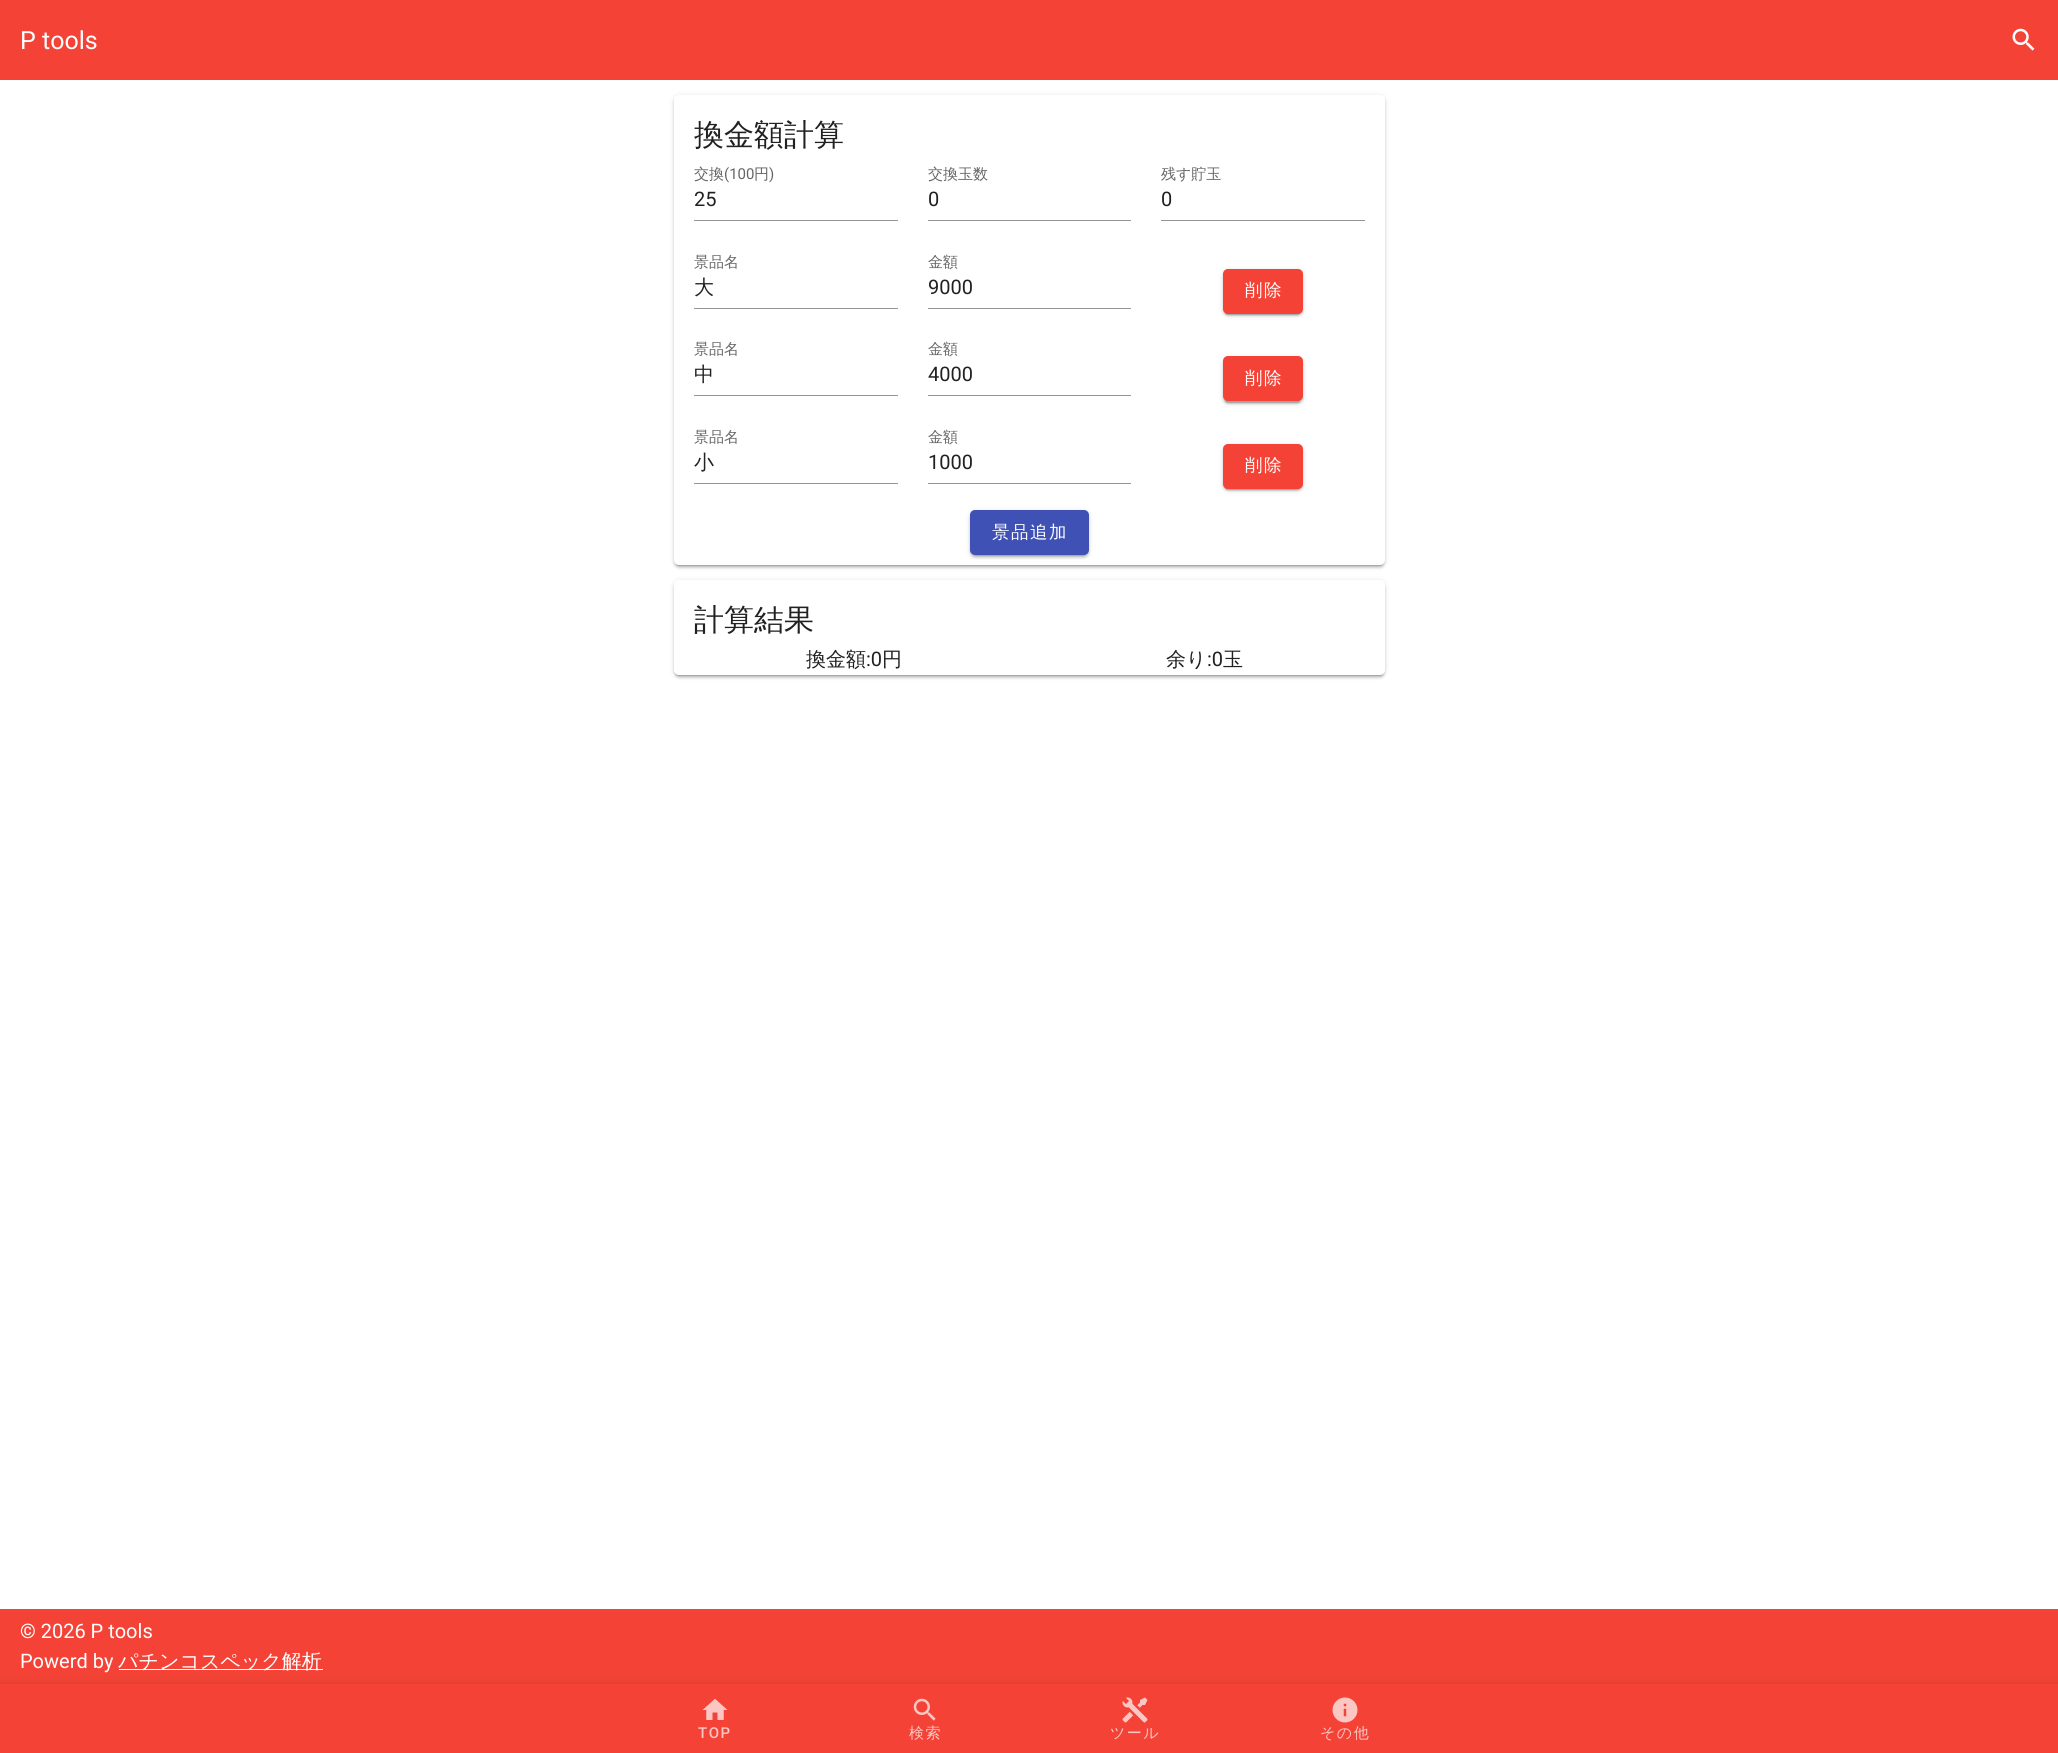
#include <cairo.h>
#include <math.h>
#include <stddef.h>


static void set_color(cairo_t *cr, unsigned color) {
    cairo_set_source_rgb(cr, (color >> 16) / 255.0, (color >> 8 & 255) / 255.0, (color & 255) / 255.0);
}

static void draw_text(cairo_t *cr, double x, double y, const char *s, const char *family, double size, int italic, int bold, unsigned color) {
    cairo_select_font_face(cr, family, italic ? CAIRO_FONT_SLANT_ITALIC : CAIRO_FONT_SLANT_NORMAL,
        bold ? CAIRO_FONT_WEIGHT_BOLD : CAIRO_FONT_WEIGHT_NORMAL);
    cairo_set_font_size(cr, size);
    set_color(cr, color);
    cairo_move_to(cr, x, y);
    cairo_show_text(cr, s);
}

static void draw_spaced(cairo_t *cr, double x, double y, const char *s, double letter, double word) {
    cairo_move_to(cr, x, y);
    while (*s) {
        char ch[5] = {0};
        int n = 0;
        do ch[n++] = *s++; while ((*s & 0xC0) == 0x80);
        cairo_show_text(cr, ch);
        cairo_rel_move_to(cr, letter + word * (*ch == ' '), 0);
    }
}

static void fill_rect(cairo_t *cr, double x, double y, double w, double h, unsigned color) {
    set_color(cr, color);
    cairo_rectangle(cr, x, y, w, h);
    cairo_fill(cr);
}

static void rounded_rect(cairo_t *cr, double x, double y, double w, double h, double r) {
    cairo_new_sub_path(cr);
    cairo_arc(cr, x + w - r, y + h - r, r, 0, M_PI / 2);
    cairo_arc(cr, x + r, y + h - r, r, M_PI / 2, M_PI);
    cairo_arc(cr, x + r, y + r, r, M_PI, 1.5 * M_PI);
    cairo_arc(cr, x + w - r, y + r, r, 1.5 * M_PI, 2 * M_PI);
    cairo_close_path(cr);
}

static void draw_shadow(cairo_t *cr, double x, double y, double w, double h, double r, double blur, double alpha) {
    cairo_push_group_with_content(cr, CAIRO_CONTENT_ALPHA);
    cairo_set_operator(cr, CAIRO_OPERATOR_SOURCE);
    for (int i = 15; i >= -15 && fmin(w, h) + blur * i / 3 > 0; i -= 2) {
        double e = blur * i / 6;
        cairo_set_source_rgba(cr, 0, 0, 0, alpha * erfc((i - 1) / 8.5) / 2);
        rounded_rect(cr, x - e, y - e, w + 2 * e, h + 2 * e, fmax(0, fmin(r + e + blur * .6, fmin(w, h) / 2 + e)));
        cairo_fill(cr);
    }
    cairo_pattern_t *soft = cairo_pop_group(cr);
    cairo_mask(cr, soft);
    cairo_pattern_destroy(soft);
}

static void draw_image(cairo_t *cr, const char *path, double x, double y, double w, double h) {
    cairo_surface_t *image = cairo_image_surface_create_from_png(path);
    cairo_save(cr);
    cairo_set_source_surface(cr, image, x, y);
    cairo_rectangle(cr, x, y, w, h);
    cairo_fill(cr);
    cairo_restore(cr);
    cairo_surface_destroy(image);
}

int main(void) {
    cairo_surface_t *surface = cairo_image_surface_create(CAIRO_FORMAT_RGB24, 2058, 1753);
    cairo_t *cr = cairo_create(surface);
    cairo_font_options_t *options = cairo_font_options_create();
    cairo_font_options_set_hint_metrics(options, CAIRO_HINT_METRICS_OFF);
    cairo_font_options_set_hint_style(options, CAIRO_HINT_STYLE_NONE);
    cairo_set_font_options(cr, options);
    cairo_set_miter_limit(cr, 4);
    set_color(cr, 0xFFFFFF);
    cairo_paint(cr);
    fill_rect(cr, 0, 0, 2058, 80, 0xF44336);
    draw_text(cr, 20, 49, "P tools", "Roboto", 25, 0, 0, 0xFFFFFF);
    draw_image(cr, "assets/img1.png", 2012, 28, 23, 23);
    set_color(cr, 0x000000);
    draw_shadow(cr, 674, 96, 711, 470, 5, 3, 0.12);
    draw_shadow(cr, 674, 98, 711, 470, 5, 1, 0.14);
    draw_shadow(cr, 676, 101, 707, 465, 2.5, 0.5, 0.2);
    set_color(cr, 0xFFFFFF);
    rounded_rect(cr, 674, 95, 711, 470, 5);
    cairo_fill(cr);
    draw_text(cr, 694, 145, "換金額計算", "WenQuanYi Zen Hei Medium", 30, 0, 0, 0x212121);
    draw_text(cr, 694, 179, "交換", "WenQuanYi Zen Hei Medium", 15, 0, 0, 0x666666);
    draw_text(cr, 724, 179, "(100", "Roboto", 15, 0, 0, 0x666666);
    draw_text(cr, 754, 179, "円", "WenQuanYi Zen Hei Medium", 15, 0, 0, 0x666666);
    draw_text(cr, 769, 179, ")", "Roboto", 15, 0, 0, 0x666666);
    draw_text(cr, 694, 206, "25", "Roboto", 20, 0, 0, 0x212121);
    fill_rect(cr, 694, 220, 204, 1, 0x949494);
    draw_text(cr, 928, 179, "交換玉数", "WenQuanYi Zen Hei Medium", 15, 0, 0, 0x666666);
    draw_text(cr, 928, 206, "0", "Roboto", 20, 0, 0, 0x212121);
    fill_rect(cr, 928, 220, 203, 1, 0x949494);
    draw_text(cr, 1161, 179, "残す貯玉", "WenQuanYi Zen Hei Medium", 15, 0, 0, 0x666666);
    draw_text(cr, 1161, 206, "0", "Roboto", 20, 0, 0, 0x212121);
    fill_rect(cr, 1161, 220, 204, 1, 0x949494);
    draw_text(cr, 694, 267, "景品名", "WenQuanYi Zen Hei Medium", 15, 0, 0, 0x666666);
    draw_text(cr, 694, 294, "大", "WenQuanYi Zen Hei Medium", 20, 0, 0, 0x212121);
    fill_rect(cr, 694, 308, 204, 1, 0x949494);
    draw_text(cr, 928, 267, "金額", "WenQuanYi Zen Hei Medium", 15, 0, 0, 0x666666);
    draw_text(cr, 928, 294, "9000", "Roboto", 20, 0, 0, 0x212121);
    fill_rect(cr, 928, 308, 203, 1, 0x949494);
    set_color(cr, 0x000000);
    draw_shadow(cr, 1223, 270, 80, 45, 5, 3, 0.12);
    draw_shadow(cr, 1223, 271, 80, 45, 5, 1, 0.14);
    draw_shadow(cr, 1225, 275, 75, 40, 2.5, 0.5, 0.2);
    set_color(cr, 0xF44336);
    rounded_rect(cr, 1223, 269, 80, 45, 5);
    cairo_fill(cr);
    cairo_select_font_face(cr, "WenQuanYi Zen Hei Medium", CAIRO_FONT_SLANT_NORMAL, CAIRO_FONT_WEIGHT_NORMAL);
    cairo_set_font_size(cr, 17.5);
    set_color(cr, 0xFFFFFF);
    draw_spaced(cr, 1245, 296, "削除", 1.5, 0);
    draw_text(cr, 694, 354, "景品名", "WenQuanYi Zen Hei Medium", 15, 0, 0, 0x666666);
    draw_text(cr, 694, 381, "中", "WenQuanYi Zen Hei Medium", 20, 0, 0, 0x212121);
    fill_rect(cr, 694, 395, 204, 1, 0x949494);
    draw_text(cr, 928, 354, "金額", "WenQuanYi Zen Hei Medium", 15, 0, 0, 0x666666);
    draw_text(cr, 928, 381, "4000", "Roboto", 20, 0, 0, 0x212121);
    fill_rect(cr, 928, 395, 203, 1, 0x949494);
    set_color(cr, 0x000000);
    draw_shadow(cr, 1223, 358, 80, 45, 5, 3, 0.12);
    draw_shadow(cr, 1223, 359, 80, 45, 5, 1, 0.14);
    draw_shadow(cr, 1225, 363, 75, 40, 2.5, 0.5, 0.2);
    set_color(cr, 0xF44336);
    rounded_rect(cr, 1223, 356, 80, 45, 5);
    cairo_fill(cr);
    cairo_select_font_face(cr, "WenQuanYi Zen Hei Medium", CAIRO_FONT_SLANT_NORMAL, CAIRO_FONT_WEIGHT_NORMAL);
    cairo_set_font_size(cr, 17.5);
    set_color(cr, 0xFFFFFF);
    draw_spaced(cr, 1245, 384, "削除", 1.5, 0);
    draw_text(cr, 694, 442, "景品名", "WenQuanYi Zen Hei Medium", 15, 0, 0, 0x666666);
    draw_text(cr, 694, 469, "小", "WenQuanYi Zen Hei Medium", 20, 0, 0, 0x212121);
    fill_rect(cr, 694, 483, 204, 1, 0x949494);
    draw_text(cr, 928, 442, "金額", "WenQuanYi Zen Hei Medium", 15, 0, 0, 0x666666);
    draw_text(cr, 928, 469, "1000", "Roboto", 20, 0, 0, 0x212121);
    fill_rect(cr, 928, 483, 203, 1, 0x949494);
    set_color(cr, 0x000000);
    draw_shadow(cr, 1223, 445, 80, 45, 5, 3, 0.12);
    draw_shadow(cr, 1223, 446, 80, 45, 5, 1, 0.14);
    draw_shadow(cr, 1225, 450, 75, 40, 2.5, 0.5, 0.2);
    set_color(cr, 0xF44336);
    rounded_rect(cr, 1223, 444, 80, 45, 5);
    cairo_fill(cr);
    cairo_select_font_face(cr, "WenQuanYi Zen Hei Medium", CAIRO_FONT_SLANT_NORMAL, CAIRO_FONT_WEIGHT_NORMAL);
    cairo_set_font_size(cr, 17.5);
    set_color(cr, 0xFFFFFF);
    draw_spaced(cr, 1245, 471, "削除", 1.5, 0);
    set_color(cr, 0x000000);
    draw_shadow(cr, 970, 511, 119, 45, 5, 3, 0.12);
    draw_shadow(cr, 970, 513, 119, 45, 5, 1, 0.14);
    draw_shadow(cr, 973, 516, 113, 40, 2.5, 0.5, 0.2);
    set_color(cr, 0x3F51B5);
    rounded_rect(cr, 970, 510, 119, 45, 5);
    cairo_fill(cr);
    set_color(cr, 0xFFFFFF);
    draw_spaced(cr, 992, 538, "景品追加", 1.5, 0);
    set_color(cr, 0x000000);
    draw_shadow(cr, 674, 581, 711, 95, 5, 3, 0.12);
    draw_shadow(cr, 674, 583, 711, 95, 5, 1, 0.14);
    draw_shadow(cr, 676, 586, 707, 90, 2.5, 0.5, 0.2);
    set_color(cr, 0xFFFFFF);
    rounded_rect(cr, 674, 580, 711, 95, 5);
    cairo_fill(cr);
    draw_text(cr, 694, 630, "計算結果", "WenQuanYi Zen Hei Medium", 30, 0, 0, 0x212121);
    draw_text(cr, 806, 666, "換金額", "WenQuanYi Zen Hei Medium", 20, 0, 0, 0x212121);
    draw_text(cr, 866, 666, ":0", "Roboto", 20, 0, 0, 0x212121);
    draw_text(cr, 882, 666, "円", "WenQuanYi Zen Hei Medium", 20, 0, 0, 0x212121);
    draw_text(cr, 1166, 666, "余り", "WenQuanYi Zen Hei Medium", 20, 0, 0, 0x212121);
    draw_text(cr, 1207, 666, ":0", "Roboto", 20, 0, 0, 0x212121);
    draw_text(cr, 1223, 666, "玉", "WenQuanYi Zen Hei Medium", 20, 0, 0, 0x212121);
    fill_rect(cr, 0, 1609, 2058, 75, 0xF44336);
    draw_text(cr, 20, 1638, "© 2026 P tools", "Roboto", 20, 0, 0, 0xFFFFFF);
    draw_text(cr, 20, 1668, "Powerd by", "Roboto", 20, 0, 0, 0xFFFFFF);
    fill_rect(cr, 119, 1669, 204, 1, 0xFFFFFF);
    draw_text(cr, 118, 1668, "パチンコスペック解析", "WenQuanYi Zen Hei Medium", 20, 0, 0, 0xFFFFFF);
    set_color(cr, 0x000000);
    draw_shadow(cr, 0, 1685, 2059, 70, 0, 6, 0.12);
    fill_rect(cr, 0, 1684, 2058, 69, 0xF44336);
    draw_image(cr, "assets/img2.png", 702, 1698, 26, 22);
    cairo_select_font_face(cr, "Roboto Medium", CAIRO_FONT_SLANT_NORMAL, CAIRO_FONT_WEIGHT_NORMAL);
    cairo_set_font_size(cr, 15);
    set_color(cr, 0xFCC7C3);
    draw_spaced(cr, 698, 1738, "TOP", 1.5, 0);
    draw_image(cr, "assets/img3.png", 913, 1698, 23, 23);
    cairo_select_font_face(cr, "WenQuanYi Zen Hei Medium", CAIRO_FONT_SLANT_NORMAL, CAIRO_FONT_WEIGHT_NORMAL);
    draw_spaced(cr, 909, 1738, "検索", 1.5, 0);
    draw_image(cr, "assets/img4.png", 1122, 1697, 26, 26);
    draw_spaced(cr, 1110, 1738, "ツール", 1.5, 0);
    draw_image(cr, "assets/img5.png", 1332, 1697, 26, 26);
    draw_spaced(cr, 1320, 1738, "その他", 1.5, 0);
    cairo_surface_write_to_png(surface, "output.png");
    cairo_font_options_destroy(options);
    cairo_destroy(cr);
    cairo_surface_destroy(surface);
    return 0;
}
